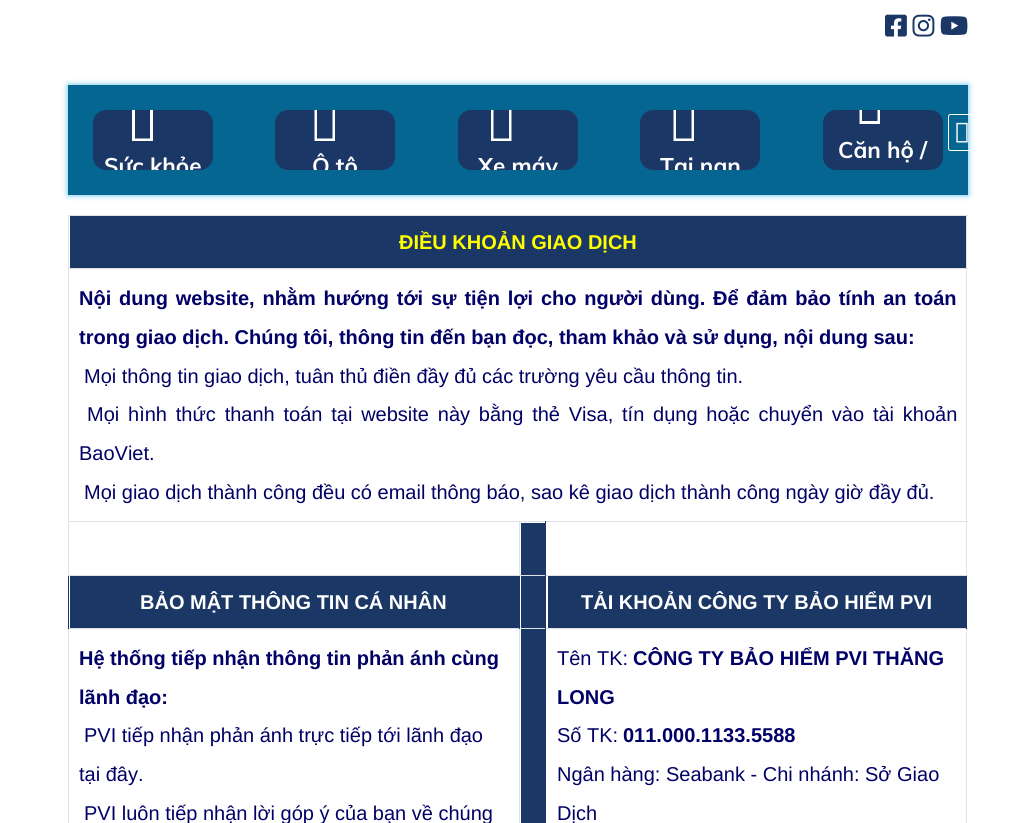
#include <cairo.h>
#include <math.h>
#include <stddef.h>


static void set_color(cairo_t *cr, unsigned color) {
    cairo_set_source_rgb(cr, (color >> 16) / 255.0, (color >> 8 & 255) / 255.0, (color & 255) / 255.0);
}

static void draw_text(cairo_t *cr, double x, double y, const char *s, const char *family, double size, int italic, int bold, unsigned color) {
    cairo_select_font_face(cr, family, italic ? CAIRO_FONT_SLANT_ITALIC : CAIRO_FONT_SLANT_NORMAL,
        bold ? CAIRO_FONT_WEIGHT_BOLD : CAIRO_FONT_WEIGHT_NORMAL);
    cairo_set_font_size(cr, size);
    set_color(cr, color);
    cairo_move_to(cr, x, y);
    cairo_show_text(cr, s);
}

static void draw_spaced(cairo_t *cr, double x, double y, const char *s, double letter, double word) {
    cairo_move_to(cr, x, y);
    while (*s) {
        char ch[5] = {0};
        int n = 0;
        do ch[n++] = *s++; while ((*s & 0xC0) == 0x80);
        cairo_show_text(cr, ch);
        cairo_rel_move_to(cr, letter + word * (*ch == ' '), 0);
    }
}

static void fill_rect(cairo_t *cr, double x, double y, double w, double h, unsigned color) {
    set_color(cr, color);
    cairo_rectangle(cr, x, y, w, h);
    cairo_fill(cr);
}

static void rounded_rect(cairo_t *cr, double x, double y, double w, double h, double r) {
    cairo_new_sub_path(cr);
    cairo_arc(cr, x + w - r, y + h - r, r, 0, M_PI / 2);
    cairo_arc(cr, x + r, y + h - r, r, M_PI / 2, M_PI);
    cairo_arc(cr, x + r, y + r, r, M_PI, 1.5 * M_PI);
    cairo_arc(cr, x + w - r, y + r, r, 1.5 * M_PI, 2 * M_PI);
    cairo_close_path(cr);
}

static void draw_shadow(cairo_t *cr, double x, double y, double w, double h, double r, double blur, double alpha) {
    cairo_push_group_with_content(cr, CAIRO_CONTENT_ALPHA);
    cairo_set_operator(cr, CAIRO_OPERATOR_SOURCE);
    for (int i = 15; i >= -15 && fmin(w, h) + blur * i / 3 > 0; i -= 2) {
        double e = blur * i / 6;
        cairo_set_source_rgba(cr, 0, 0, 0, alpha * erfc((i - 1) / 8.5) / 2);
        rounded_rect(cr, x - e, y - e, w + 2 * e, h + 2 * e, fmax(0, fmin(r + e + blur * .6, fmin(w, h) / 2 + e)));
        cairo_fill(cr);
    }
    cairo_pattern_t *soft = cairo_pop_group(cr);
    cairo_mask(cr, soft);
    cairo_pattern_destroy(soft);
}

static void draw_image(cairo_t *cr, const char *path, double x, double y, double w, double h) {
    cairo_surface_t *image = cairo_image_surface_create_from_png(path);
    cairo_save(cr);
    cairo_set_source_surface(cr, image, x, y);
    cairo_rectangle(cr, x, y, w, h);
    cairo_fill(cr);
    cairo_restore(cr);
    cairo_surface_destroy(image);
}

int main(void) {
    cairo_surface_t *surface = cairo_image_surface_create(CAIRO_FORMAT_RGB24, 1034, 823);
    cairo_t *cr = cairo_create(surface);
    cairo_font_options_t *options = cairo_font_options_create();
    cairo_font_options_set_hint_metrics(options, CAIRO_HINT_METRICS_OFF);
    cairo_font_options_set_hint_style(options, CAIRO_HINT_STYLE_NONE);
    cairo_set_font_options(cr, options);
    cairo_set_miter_limit(cr, 4);
    set_color(cr, 0xFFFFFF);
    cairo_paint(cr);
    draw_image(cr, "assets/img1.png", 885, 14, 22, 23);
    draw_image(cr, "assets/img2.png", 912, 14, 23, 23);
    draw_image(cr, "assets/img3.png", 940, 16, 28, 19);
    set_color(cr, 0x54BDEA);
    draw_shadow(cr, 68, 85, 900, 110, 0, 3, 1);
    fill_rect(cr, 68, 85, 900, 110, 0x056691);
    rounded_rect(cr, 948.5, 114.5, 36, 36, 2);
    set_color(cr, 0xFFFFFF);
    cairo_set_line_width(cr, 1);
    cairo_stroke(cr);
    draw_image(cr, "assets/img4.png", 956, 122, 12, 21);
    set_color(cr, 0x1B3765);
    rounded_rect(cr, 93, 110, 120, 60, 13);
    cairo_fill(cr);
    set_color(cr, 0xFFFFFF);
    cairo_new_path(cr);
    cairo_move_to(cr, 132, 141);
    cairo_line_to(cr, 153, 141);
    cairo_line_to(cr, 153, 110);
    cairo_line_to(cr, 150, 110);
    cairo_line_to(cr, 150, 138.5);
    cairo_line_to(cr, 135, 138.5);
    cairo_line_to(cr, 135, 110);
    cairo_line_to(cr, 132, 110);
    cairo_close_path(cr);
    cairo_fill(cr);
    cairo_save(cr);
    rounded_rect(cr, 93, 110, 120, 60, 13);
    cairo_clip(cr);
    draw_text(cr, 104, 174, "Sức khỏe", "Muli", 22.5, 0, 1, 0xFFFFFF);
    cairo_restore(cr);
    set_color(cr, 0x1B3765);
    rounded_rect(cr, 275, 110, 120, 60, 13);
    cairo_fill(cr);
    set_color(cr, 0xFFFFFF);
    cairo_new_path(cr);
    cairo_move_to(cr, 314.5, 141);
    cairo_line_to(cr, 335, 141);
    cairo_line_to(cr, 335, 110);
    cairo_line_to(cr, 332.5, 110);
    cairo_line_to(cr, 332.5, 138.5);
    cairo_line_to(cr, 317, 138.5);
    cairo_line_to(cr, 317, 110);
    cairo_line_to(cr, 314.5, 110);
    cairo_close_path(cr);
    cairo_fill(cr);
    cairo_save(cr);
    rounded_rect(cr, 275, 110, 120, 60, 13);
    cairo_clip(cr);
    draw_text(cr, 312, 174, "Ô tô", "Muli", 22.5, 0, 1, 0xFFFFFF);
    cairo_restore(cr);
    set_color(cr, 0x1B3765);
    rounded_rect(cr, 458, 110, 120, 60, 13);
    cairo_fill(cr);
    set_color(cr, 0xFFFFFF);
    cairo_new_path(cr);
    cairo_move_to(cr, 491, 141);
    cairo_line_to(cr, 511.5, 141);
    cairo_line_to(cr, 511.5, 110);
    cairo_line_to(cr, 509, 110);
    cairo_line_to(cr, 509, 138.5);
    cairo_line_to(cr, 493.5, 138.5);
    cairo_line_to(cr, 493.5, 110);
    cairo_line_to(cr, 491, 110);
    cairo_close_path(cr);
    cairo_fill(cr);
    cairo_save(cr);
    rounded_rect(cr, 458, 110, 120, 60, 13);
    cairo_clip(cr);
    draw_text(cr, 478, 174, "Xe máy", "Muli", 22.5, 0, 1, 0xFFFFFF);
    cairo_restore(cr);
    set_color(cr, 0x1B3765);
    rounded_rect(cr, 640, 110, 120, 60, 13);
    cairo_fill(cr);
    set_color(cr, 0xFFFFFF);
    cairo_new_path(cr);
    cairo_move_to(cr, 673.5, 141);
    cairo_line_to(cr, 694, 141);
    cairo_line_to(cr, 694, 110);
    cairo_line_to(cr, 691.5, 110);
    cairo_line_to(cr, 691.5, 138.5);
    cairo_line_to(cr, 676, 138.5);
    cairo_line_to(cr, 676, 110);
    cairo_line_to(cr, 673.5, 110);
    cairo_close_path(cr);
    cairo_fill(cr);
    cairo_save(cr);
    rounded_rect(cr, 640, 110, 120, 60, 13);
    cairo_clip(cr);
    draw_text(cr, 660, 174, "Tai nạn", "Muli", 22.5, 0, 1, 0xFFFFFF);
    cairo_restore(cr);
    set_color(cr, 0x1B3765);
    rounded_rect(cr, 823, 110, 120, 60, 13);
    cairo_fill(cr);
    set_color(cr, 0xFFFFFF);
    cairo_new_path(cr);
    cairo_move_to(cr, 859.5, 124);
    cairo_line_to(cr, 880, 124);
    cairo_line_to(cr, 880, 110);
    cairo_line_to(cr, 877.5, 110);
    cairo_line_to(cr, 877.5, 121);
    cairo_line_to(cr, 862, 121);
    cairo_line_to(cr, 862, 110);
    cairo_line_to(cr, 859.5, 110);
    cairo_close_path(cr);
    cairo_fill(cr);
    draw_text(cr, 838, 158, "Căn hộ /", "Muli", 22.5, 0, 1, 0xFFFFFF);
    fill_rect(cr, 68, 208, 900, 1, 0xFBFBFB);
    fill_rect(cr, 68, 215, 900, 1, 0xDEE2E6);
    fill_rect(cr, 966, 215, 1, 608, 0xDEE2E6);
    fill_rect(cr, 68, 215, 1, 608, 0xDEE2E6);
    fill_rect(cr, 70, 216, 896, 52, 0x1B3765);
    draw_text(cr, 399, 249, "ĐIỀU KHOẢN GIAO DỊCH", "Liberation Sans", 20, 0, 1, 0xFFFF00);
    fill_rect(cr, 68, 268, 900, 1, 0xDEE2E6);
    set_color(cr, 0x000066);
    draw_spaced(cr, 79, 305, "Nội dung website, nhằm hướng tới sự tiện lợi cho người dùng. Để đảm bảo tính an toán", 0, 2.25);
    draw_text(cr, 79, 344, "trong giao dịch. Chúng tôi, thông tin đến bạn đọc, tham khảo và sử dụng, nội dung sau:", "Liberation Sans", 20, 0, 1, 0x000066);
    draw_text(cr, 84, 383, "Mọi thông tin giao dịch, tuân thủ điền đầy đủ các trường yêu cầu thông tin.", "Liberation Sans", 20, 0, 0, 0x000066);
    draw_spaced(cr, 87, 421, "Mọi hình thức thanh toán tại website này bằng thẻ Visa, tín dụng hoặc chuyển vào tài khoản", 0, 3.25);
    draw_text(cr, 79, 460, "BaoViet.", "Liberation Sans", 20, 0, 0, 0x000066);
    draw_text(cr, 84, 499, "Mọi giao dịch thành công đều có email thông báo, sao kê giao dịch thành công ngày giờ đầy đủ.", "Liberation Sans", 20, 0, 0, 0x000066);
    fill_rect(cr, 68, 521, 900, 1, 0xDEE2E6);
    fill_rect(cr, 68, 575, 900, 1, 0xDEE2E6);
    fill_rect(cr, 68, 628, 900, 1, 0xDEE2E6);
    fill_rect(cr, 519, 628, 1, 195, 0xDEE2E6);
    fill_rect(cr, 519, 575, 1, 54, 0x1B3765);
    fill_rect(cr, 519, 521, 1, 55, 0xDEE2E6);
    fill_rect(cr, 68, 575, 1, 54, 0x1B3765);
    fill_rect(cr, 68, 575, 1, 1, 0xDEE2E6);
    fill_rect(cr, 521, 523, 24, 52, 0x1B3765);
    fill_rect(cr, 966, 575, 1, 54, 0x1B3765);
    fill_rect(cr, 966, 575, 1, 1, 0xDEE2E6);
    fill_rect(cr, 70, 576, 449, 52, 0x1B3765);
    draw_text(cr, 140, 609, "BẢO MẬT THÔNG TIN CÁ NHÂN", "Liberation Sans", 20, 0, 1, 0xFFFFFF);
    fill_rect(cr, 521, 576, 24, 52, 0x1B3765);
    fill_rect(cr, 548, 576, 418, 52, 0x1B3765);
    draw_text(cr, 581, 609, "TẢI KHOẢN CÔNG TY BẢO HIỂM PVI", "Liberation Sans", 20, 0, 1, 0xFFFFFF);
    draw_text(cr, 79, 665, "Hệ thống tiếp nhận thông tin phản ánh cùng", "Liberation Sans", 20, 0, 1, 0x000066);
    draw_text(cr, 79, 704, "lãnh đạo:", "Liberation Sans", 20, 0, 1, 0x000066);
    draw_text(cr, 84, 742, "PVI tiếp nhận phản ánh trực tiếp tới lãnh đạo", "Liberation Sans", 20, 0, 0, 0x000066);
    draw_text(cr, 79, 781, "tại đây.", "Liberation Sans", 20, 0, 0, 0x000066);
    draw_text(cr, 84, 820, "PVI luôn tiếp nhận lời góp ý của bạn về chúng", "Liberation Sans", 20, 0, 0, 0x000066);
    fill_rect(cr, 521, 629, 24, 194, 0x1B3765);
    fill_rect(cr, 545, 521, 1, 302, 0x1B3765);
    draw_text(cr, 557, 665, "Tên TK:", "Liberation Sans", 20, 0, 0, 0x000066);
    draw_text(cr, 633, 665, "CÔNG TY BẢO HIỂM PVI THĂNG", "Liberation Sans", 20, 0, 1, 0x000066);
    draw_text(cr, 557, 704, "LONG", "Liberation Sans", 20, 0, 1, 0x000066);
    draw_text(cr, 557, 742, "Số TK:", "Liberation Sans", 20, 0, 0, 0x000066);
    draw_text(cr, 623, 742, "011.000.1133.5588", "Liberation Sans", 20, 0, 1, 0x000066);
    draw_text(cr, 557, 781, "Ngân hàng: Seabank - Chi nhánh: Sở Giao", "Liberation Sans", 20, 0, 0, 0x000066);
    draw_text(cr, 557, 820, "Dịch", "Liberation Sans", 20, 0, 0, 0x000066);
    cairo_surface_write_to_png(surface, "output.png");
    cairo_font_options_destroy(options);
    cairo_destroy(cr);
    cairo_surface_destroy(surface);
    return 0;
}
